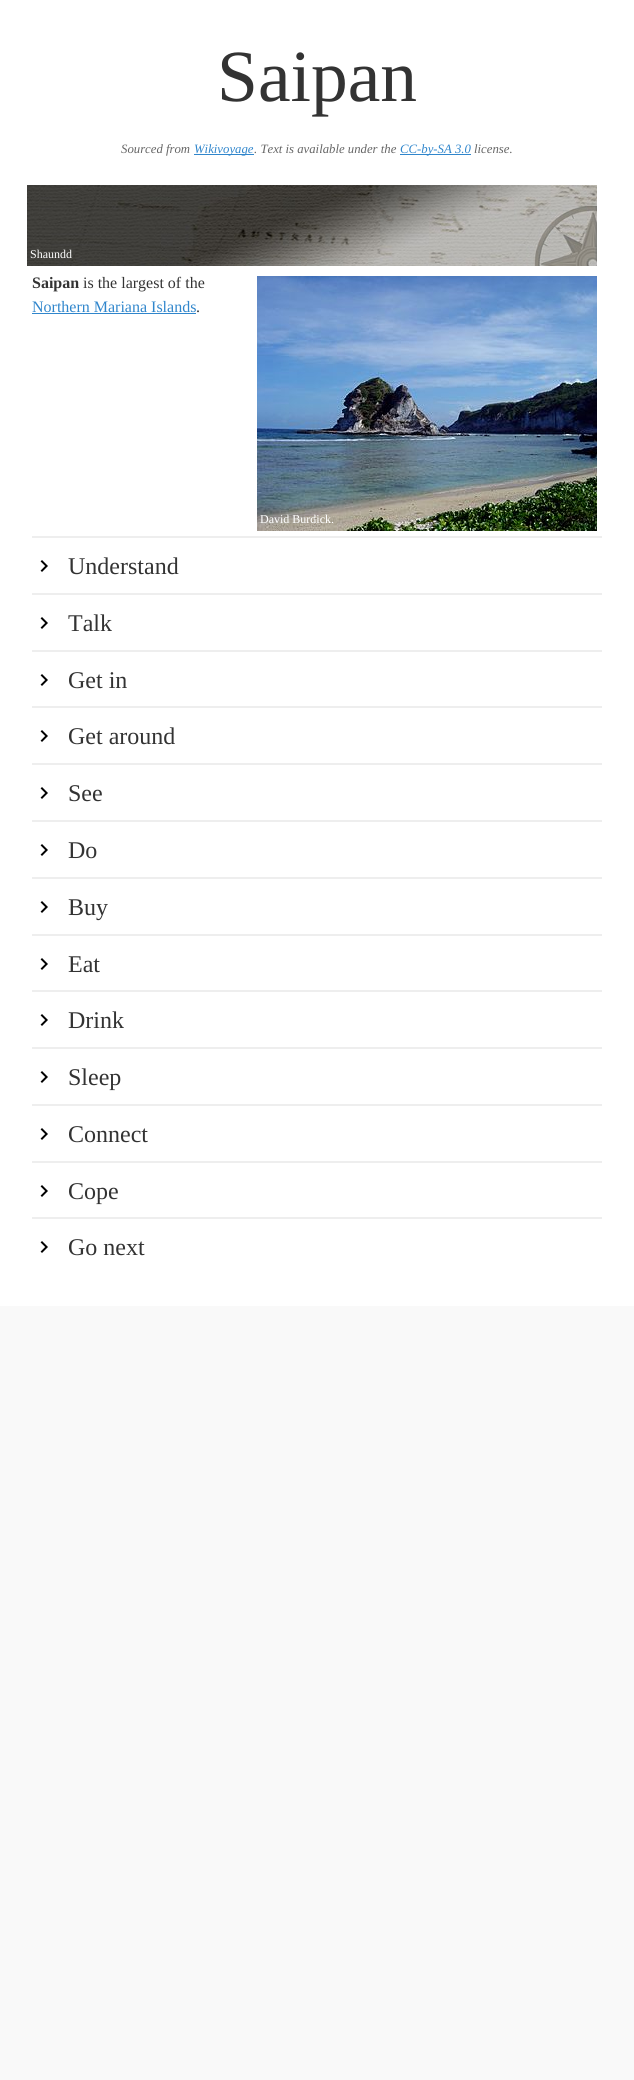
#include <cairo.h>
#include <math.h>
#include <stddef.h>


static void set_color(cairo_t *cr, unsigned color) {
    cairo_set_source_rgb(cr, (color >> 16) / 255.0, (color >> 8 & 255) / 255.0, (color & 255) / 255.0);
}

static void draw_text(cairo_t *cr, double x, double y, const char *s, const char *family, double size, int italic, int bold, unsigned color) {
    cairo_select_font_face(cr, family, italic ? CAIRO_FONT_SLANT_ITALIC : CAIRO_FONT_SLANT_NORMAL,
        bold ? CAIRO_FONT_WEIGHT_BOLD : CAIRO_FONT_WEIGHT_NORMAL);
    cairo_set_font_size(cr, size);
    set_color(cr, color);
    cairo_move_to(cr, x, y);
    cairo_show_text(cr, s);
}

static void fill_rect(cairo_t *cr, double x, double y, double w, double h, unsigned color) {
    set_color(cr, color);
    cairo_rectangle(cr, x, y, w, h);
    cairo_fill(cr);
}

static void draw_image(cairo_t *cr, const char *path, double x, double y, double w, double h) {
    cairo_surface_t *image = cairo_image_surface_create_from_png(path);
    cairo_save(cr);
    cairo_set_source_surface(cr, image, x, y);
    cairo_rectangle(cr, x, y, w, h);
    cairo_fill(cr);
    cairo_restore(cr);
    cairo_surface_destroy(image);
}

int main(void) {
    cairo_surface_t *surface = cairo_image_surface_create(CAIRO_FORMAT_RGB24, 634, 2080);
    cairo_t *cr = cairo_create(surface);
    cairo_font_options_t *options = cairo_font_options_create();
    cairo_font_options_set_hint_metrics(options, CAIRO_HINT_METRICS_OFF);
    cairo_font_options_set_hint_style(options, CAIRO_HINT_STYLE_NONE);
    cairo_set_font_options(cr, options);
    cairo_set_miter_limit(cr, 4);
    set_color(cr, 0xF9F9F9);
    cairo_paint(cr);
    fill_rect(cr, 0, 0, 634, 1306, 0xFFFFFF);
    draw_text(cr, 217, 101, "Saipan", "Liberation Serif", 73.5, 0, 0, 0x333333);
    draw_text(cr, 121, 153, "Sourced from", "Liberation Serif", 12.75, 1, 0, 0x666666);
    fill_rect(cr, 194, 154, 60, 1, 0x3086CC);
    draw_text(cr, 194, 153, "Wikivoyage", "Liberation Serif", 12.75, 1, 0, 0x3086CC);
    draw_text(cr, 254, 153, ". Text is available under the", "Liberation Serif", 12.75, 1, 0, 0x666666);
    fill_rect(cr, 400, 154, 71, 1, 0x3086CC);
    draw_text(cr, 400, 153, "CC-by-SA 3.0", "Liberation Serif", 12.75, 1, 0, 0x3086CC);
    draw_text(cr, 474, 153, "license.", "Liberation Serif", 12.75, 1, 0, 0x666666);
    draw_image(cr, "assets/img1.png", 27, 185, 570, 81);
    draw_text(cr, 30, 258, "Shaundd", "Liberation Serif", 12, 0, 0, 0xFFFFFF);
    draw_text(cr, 32, 288, "Saipan", "Liberation Serif", 16, 0, 1, 0x333333);
    draw_text(cr, 83, 288, "is the largest of the", "Liberation Serif", 16, 0, 0, 0x333333);
    draw_text(cr, 32, 312, "Northern Mariana Islands", "Liberation Serif", 16, 0, 0, 0x3086CC);
    fill_rect(cr, 32, 313, 164, 1, 0x3086CC);
    draw_text(cr, 196, 312, ".", "Liberation Serif", 16, 0, 0, 0x333333);
    draw_image(cr, "assets/img2.png", 257, 276, 340, 255);
    draw_text(cr, 260, 523, "David Burdick.", "Liberation Serif", 12, 0, 0, 0xFFFFFF);
    fill_rect(cr, 32, 536, 570, 2, 0xEEEEEE);
    draw_image(cr, "assets/img3.png", 40, 560, 8, 12);
    draw_text(cr, 68, 574, "Understand", "Liberation Serif", 24, 0, 0, 0x333333);
    fill_rect(cr, 32, 593, 570, 2, 0xEEEEEE);
    draw_image(cr, "assets/img3.png", 40, 617, 8, 12);
    draw_text(cr, 68, 631, "Talk", "Liberation Serif", 24, 0, 0, 0x333333);
    fill_rect(cr, 32, 650, 570, 2, 0xEEEEEE);
    draw_image(cr, "assets/img3.png", 40, 674, 8, 12);
    draw_text(cr, 68, 688, "Get in", "Liberation Serif", 24, 0, 0, 0x333333);
    fill_rect(cr, 32, 706, 570, 2, 0xEEEEEE);
    draw_image(cr, "assets/img3.png", 40, 730, 8, 12);
    draw_text(cr, 68, 744, "Get around", "Liberation Serif", 24, 0, 0, 0x333333);
    fill_rect(cr, 32, 763, 570, 2, 0xEEEEEE);
    draw_image(cr, "assets/img3.png", 40, 787, 8, 12);
    draw_text(cr, 68, 801, "See", "Liberation Serif", 24, 0, 0, 0x333333);
    fill_rect(cr, 32, 820, 570, 2, 0xEEEEEE);
    draw_image(cr, "assets/img3.png", 40, 844, 8, 12);
    draw_text(cr, 68, 858, "Do", "Liberation Serif", 24, 0, 0, 0x333333);
    fill_rect(cr, 32, 877, 570, 2, 0xEEEEEE);
    draw_image(cr, "assets/img3.png", 40, 901, 8, 12);
    draw_text(cr, 68, 915, "Buy", "Liberation Serif", 24, 0, 0, 0x333333);
    fill_rect(cr, 32, 934, 570, 2, 0xEEEEEE);
    draw_image(cr, "assets/img3.png", 40, 958, 8, 12);
    draw_text(cr, 68, 972, "Eat", "Liberation Serif", 24, 0, 0, 0x333333);
    fill_rect(cr, 32, 990, 570, 2, 0xEEEEEE);
    draw_image(cr, "assets/img3.png", 40, 1014, 8, 12);
    draw_text(cr, 68, 1028, "Drink", "Liberation Serif", 24, 0, 0, 0x333333);
    fill_rect(cr, 32, 1047, 570, 2, 0xEEEEEE);
    draw_image(cr, "assets/img3.png", 40, 1071, 8, 12);
    draw_text(cr, 68, 1085, "Sleep", "Liberation Serif", 24, 0, 0, 0x333333);
    fill_rect(cr, 32, 1104, 570, 2, 0xEEEEEE);
    draw_image(cr, "assets/img3.png", 40, 1128, 8, 12);
    draw_text(cr, 68, 1142, "Connect", "Liberation Serif", 24, 0, 0, 0x333333);
    fill_rect(cr, 32, 1161, 570, 2, 0xEEEEEE);
    draw_image(cr, "assets/img3.png", 40, 1185, 8, 12);
    draw_text(cr, 68, 1199, "Cope", "Liberation Serif", 24, 0, 0, 0x333333);
    fill_rect(cr, 32, 1217, 570, 2, 0xEEEEEE);
    draw_image(cr, "assets/img3.png", 40, 1241, 8, 12);
    draw_text(cr, 68, 1255, "Go next", "Liberation Serif", 24, 0, 0, 0x333333);
    cairo_surface_write_to_png(surface, "output.png");
    cairo_font_options_destroy(options);
    cairo_destroy(cr);
    cairo_surface_destroy(surface);
    return 0;
}
